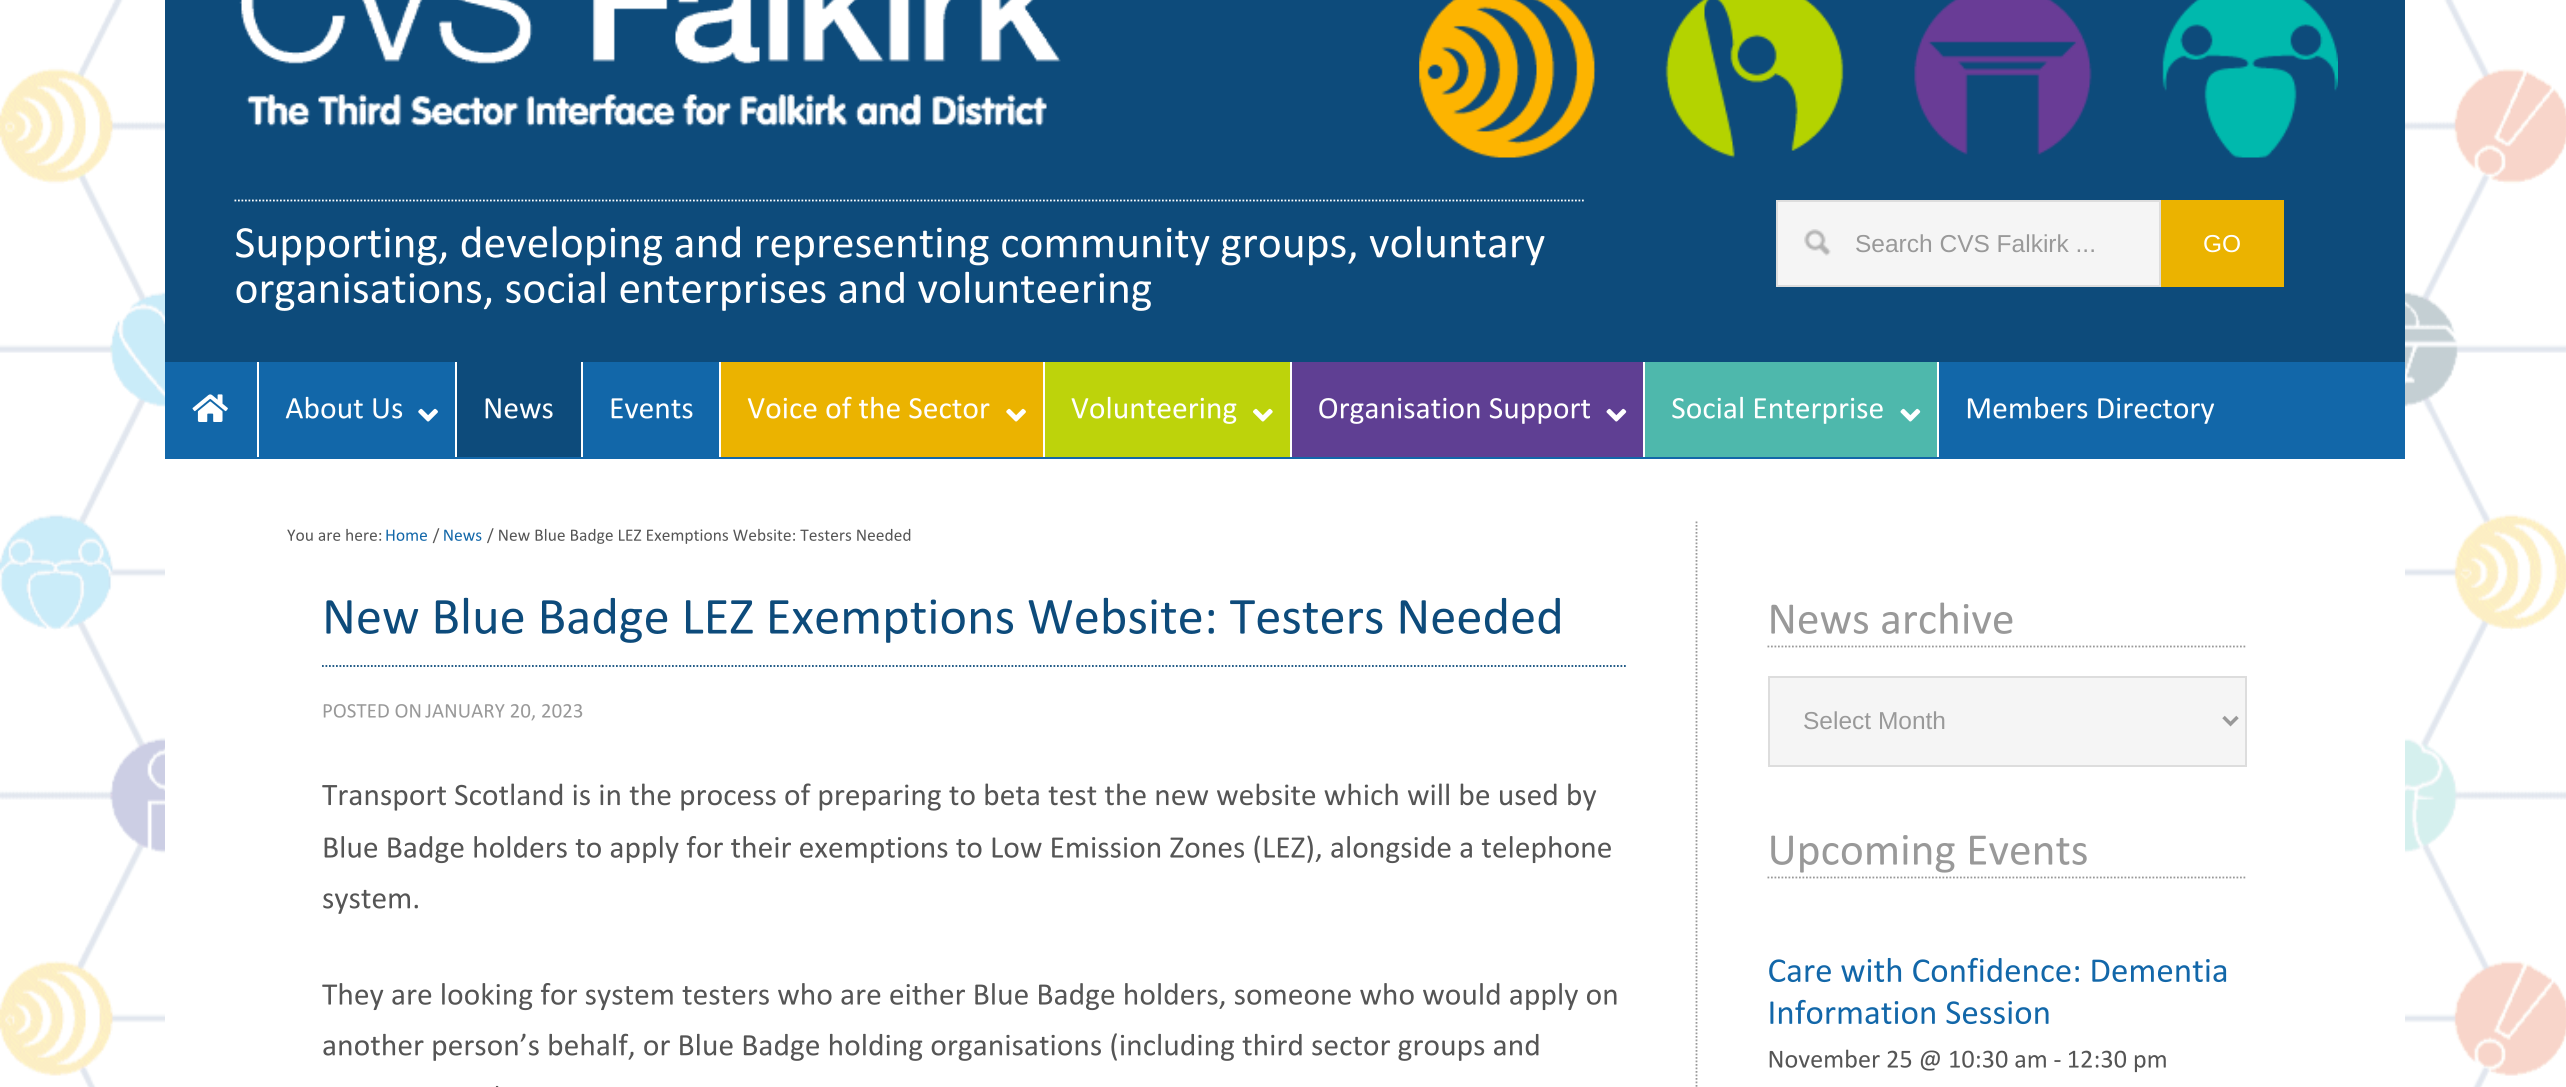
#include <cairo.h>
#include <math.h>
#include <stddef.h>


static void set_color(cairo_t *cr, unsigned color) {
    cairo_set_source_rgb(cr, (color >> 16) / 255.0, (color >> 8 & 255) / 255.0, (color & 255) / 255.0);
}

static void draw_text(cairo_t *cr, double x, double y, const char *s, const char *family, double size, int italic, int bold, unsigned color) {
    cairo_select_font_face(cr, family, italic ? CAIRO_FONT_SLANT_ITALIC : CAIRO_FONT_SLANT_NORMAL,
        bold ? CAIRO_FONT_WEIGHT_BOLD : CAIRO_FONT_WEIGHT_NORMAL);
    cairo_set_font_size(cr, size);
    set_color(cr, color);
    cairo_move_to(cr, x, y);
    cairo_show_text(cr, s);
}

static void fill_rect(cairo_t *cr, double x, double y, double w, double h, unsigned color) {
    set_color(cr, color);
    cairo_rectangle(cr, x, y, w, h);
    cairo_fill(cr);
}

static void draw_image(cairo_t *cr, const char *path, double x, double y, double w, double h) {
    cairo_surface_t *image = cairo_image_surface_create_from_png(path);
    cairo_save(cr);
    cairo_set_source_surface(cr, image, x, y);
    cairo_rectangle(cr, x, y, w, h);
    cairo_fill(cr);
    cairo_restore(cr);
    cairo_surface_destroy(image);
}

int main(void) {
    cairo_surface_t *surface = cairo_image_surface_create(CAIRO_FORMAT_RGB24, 2566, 1087);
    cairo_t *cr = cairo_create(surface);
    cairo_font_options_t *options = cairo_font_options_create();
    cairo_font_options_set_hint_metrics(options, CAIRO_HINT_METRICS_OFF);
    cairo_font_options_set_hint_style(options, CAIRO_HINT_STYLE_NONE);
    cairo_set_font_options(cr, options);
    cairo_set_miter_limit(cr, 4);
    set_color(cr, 0xFFFFFF);
    cairo_paint(cr);
    draw_image(cr, "assets/img1.png", 0, 0, 2566, 1087);
    fill_rect(cr, 165, 459, 2240, 628, 0xFFFFFF);
    fill_rect(cr, 165, 0, 2240, 362, 0x0D4B7B);
    draw_image(cr, "assets/img2.png", 1419, 0, 919, 158);
    draw_image(cr, "assets/img3.png", 239, 0, 822, 127);
    cairo_new_path(cr);
    cairo_move_to(cr, 234.5, 200.5);
    cairo_line_to(cr, 1585.5, 200.5);
    set_color(cr, 0xFFFFFF);
    cairo_set_line_width(cr, 1.8);
    cairo_set_dash(cr, (double[]){1.75, 1.75}, 2, 0);
    cairo_stroke(cr);
    draw_image(cr, "assets/img4.png", 236, 226, 1309, 40);
    draw_image(cr, "assets/img5.png", 236, 271, 915, 40);
    fill_rect(cr, 1778, 202, 381, 83, 0xF5F5F5);
    draw_image(cr, "assets/img6.png", 1804, 229, 27, 27);
    cairo_rectangle(cr, 1777, 201, 383, 85);
    set_color(cr, 0xDDDDDD);
    cairo_set_line_width(cr, 2);
    cairo_set_dash(cr, NULL, 0, 0);
    cairo_stroke(cr);
    draw_text(cr, 1855, 252, "Search CVS Falkirk ...", "Liberation Sans", 24.5, 0, 0, 0x999999);
    fill_rect(cr, 2161, 200, 123, 87, 0xEBB300);
    draw_text(cr, 2203, 252, "GO", "Liberation Sans", 24.5, 0, 0, 0xFFFFFF);
    fill_rect(cr, 165, 362, 2240, 97, 0x1267A9);
    draw_image(cr, "assets/img7.png", 192, 394, 36, 28);
    fill_rect(cr, 257, 362, 2, 95, 0xFFFFFF);
    draw_image(cr, "assets/img8.png", 285, 396, 118, 23);
    draw_image(cr, "assets/img9.png", 418, 408, 20, 14);
    fill_rect(cr, 457, 362, 124, 95, 0x0D4B7B);
    fill_rect(cr, 455, 362, 2, 95, 0xFFFFFF);
    draw_image(cr, "assets/img10.png", 485, 398, 68, 21);
    fill_rect(cr, 581, 362, 2, 95, 0xFFFFFF);
    draw_image(cr, "assets/img11.png", 611, 398, 82, 21);
    fill_rect(cr, 721, 362, 322, 95, 0xEBB300);
    fill_rect(cr, 719, 362, 2, 95, 0xFFFFFF);
    draw_image(cr, "assets/img12.png", 747, 396, 243, 23);
    draw_image(cr, "assets/img13.png", 1006, 408, 20, 14);
    fill_rect(cr, 1045, 362, 245, 95, 0xBDD30B);
    fill_rect(cr, 1043, 362, 2, 95, 0xFFFFFF);
    draw_image(cr, "assets/img14.png", 1071, 396, 166, 28);
    draw_image(cr, "assets/img15.png", 1253, 408, 20, 14);
    fill_rect(cr, 1292, 362, 351, 95, 0x5F3F93);
    fill_rect(cr, 1290, 362, 2, 95, 0xFFFFFF);
    draw_image(cr, "assets/img16.png", 1319, 397, 271, 27);
    draw_image(cr, "assets/img17.png", 1606, 408, 21, 14);
    fill_rect(cr, 1645, 362, 292, 95, 0x4EB8AC);
    fill_rect(cr, 1643, 362, 2, 95, 0xFFFFFF);
    draw_image(cr, "assets/img18.png", 1672, 396, 211, 28);
    draw_image(cr, "assets/img19.png", 1900, 408, 21, 14);
    fill_rect(cr, 1937, 362, 2, 95, 0xFFFFFF);
    draw_image(cr, "assets/img20.png", 1967, 396, 248, 28);
    cairo_new_path(cr);
    cairo_move_to(cr, 1696.5, 521.5);
    cairo_line_to(cr, 1696.5, 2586.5);
    set_color(cr, 0x999999);
    cairo_set_line_width(cr, 1.8);
    cairo_set_dash(cr, (double[]){1.75, 1.75}, 2, 0);
    cairo_stroke(cr);
    draw_image(cr, "assets/img21.png", 287, 528, 95, 13);
    draw_image(cr, "assets/img22.png", 386, 529, 41, 12);
    draw_image(cr, "assets/img23.png", 432, 528, 8, 16);
    draw_image(cr, "assets/img24.png", 444, 529, 38, 12);
    draw_image(cr, "assets/img25.png", 487, 528, 424, 16);
    cairo_new_path(cr);
    cairo_move_to(cr, 322, 666);
    cairo_line_to(cr, 1626, 666);
    set_color(cr, 0x0D4B7B);
    cairo_stroke(cr);
    draw_image(cr, "assets/img26.png", 326, 597, 1234, 46);
    draw_image(cr, "assets/img27.png", 323, 704, 98, 14);
    draw_image(cr, "assets/img28.png", 425, 704, 158, 17);
    draw_image(cr, "assets/img29.png", 322, 783, 1275, 28);
    draw_image(cr, "assets/img30.png", 324, 835, 1287, 29);
    draw_image(cr, "assets/img31.png", 323, 889, 95, 25);
    draw_image(cr, "assets/img32.png", 322, 983, 1295, 28);
    draw_image(cr, "assets/img33.png", 323, 1033, 1216, 28);
    draw_image(cr, "assets/img34.png", 495, 1085, 4, 2);
    cairo_new_path(cr);
    cairo_move_to(cr, 1767.5, 646.5);
    cairo_line_to(cr, 2247, 646.5);
    set_color(cr, 0x999999);
    cairo_stroke(cr);
    draw_image(cr, "assets/img35.png", 1771, 602, 242, 32);
    set_color(cr, 0xF5F5F5);
    cairo_rectangle(cr, 1769, 677, 477, 89);
    cairo_fill_preserve(cr);
    set_color(cr, 0xDDDDDD);
    cairo_set_line_width(cr, 2);
    cairo_set_dash(cr, NULL, 0, 0);
    cairo_stroke(cr);
    cairo_new_path(cr);
    cairo_move_to(cr, 2223.5, 717);
    cairo_line_to(cr, 2230.5, 724);
    cairo_line_to(cr, 2237.5, 717);
    set_color(cr, 0x999999);
    cairo_set_line_width(cr, 3.5);
    cairo_stroke(cr);
    draw_text(cr, 1803, 729, "Select Month", "Liberation Sans", 24.5, 0, 0, 0x999999);
    cairo_new_path(cr);
    cairo_move_to(cr, 1767.5, 877.5);
    cairo_line_to(cr, 2247, 877.5);
    cairo_set_line_width(cr, 1.8);
    cairo_set_dash(cr, (double[]){1.75, 1.75}, 2, 0);
    cairo_stroke(cr);
    draw_image(cr, "assets/img36.png", 1771, 835, 316, 38);
    draw_image(cr, "assets/img37.png", 1769, 957, 458, 26);
    draw_image(cr, "assets/img38.png", 1770, 999, 279, 26);
    draw_image(cr, "assets/img39.png", 1769, 1049, 277, 22);
    draw_image(cr, "assets/img40.png", 2054, 1060, 7, 2);
    draw_image(cr, "assets/img41.png", 2069, 1050, 97, 23);
    cairo_surface_write_to_png(surface, "output.png");
    cairo_font_options_destroy(options);
    cairo_destroy(cr);
    cairo_surface_destroy(surface);
    return 0;
}
